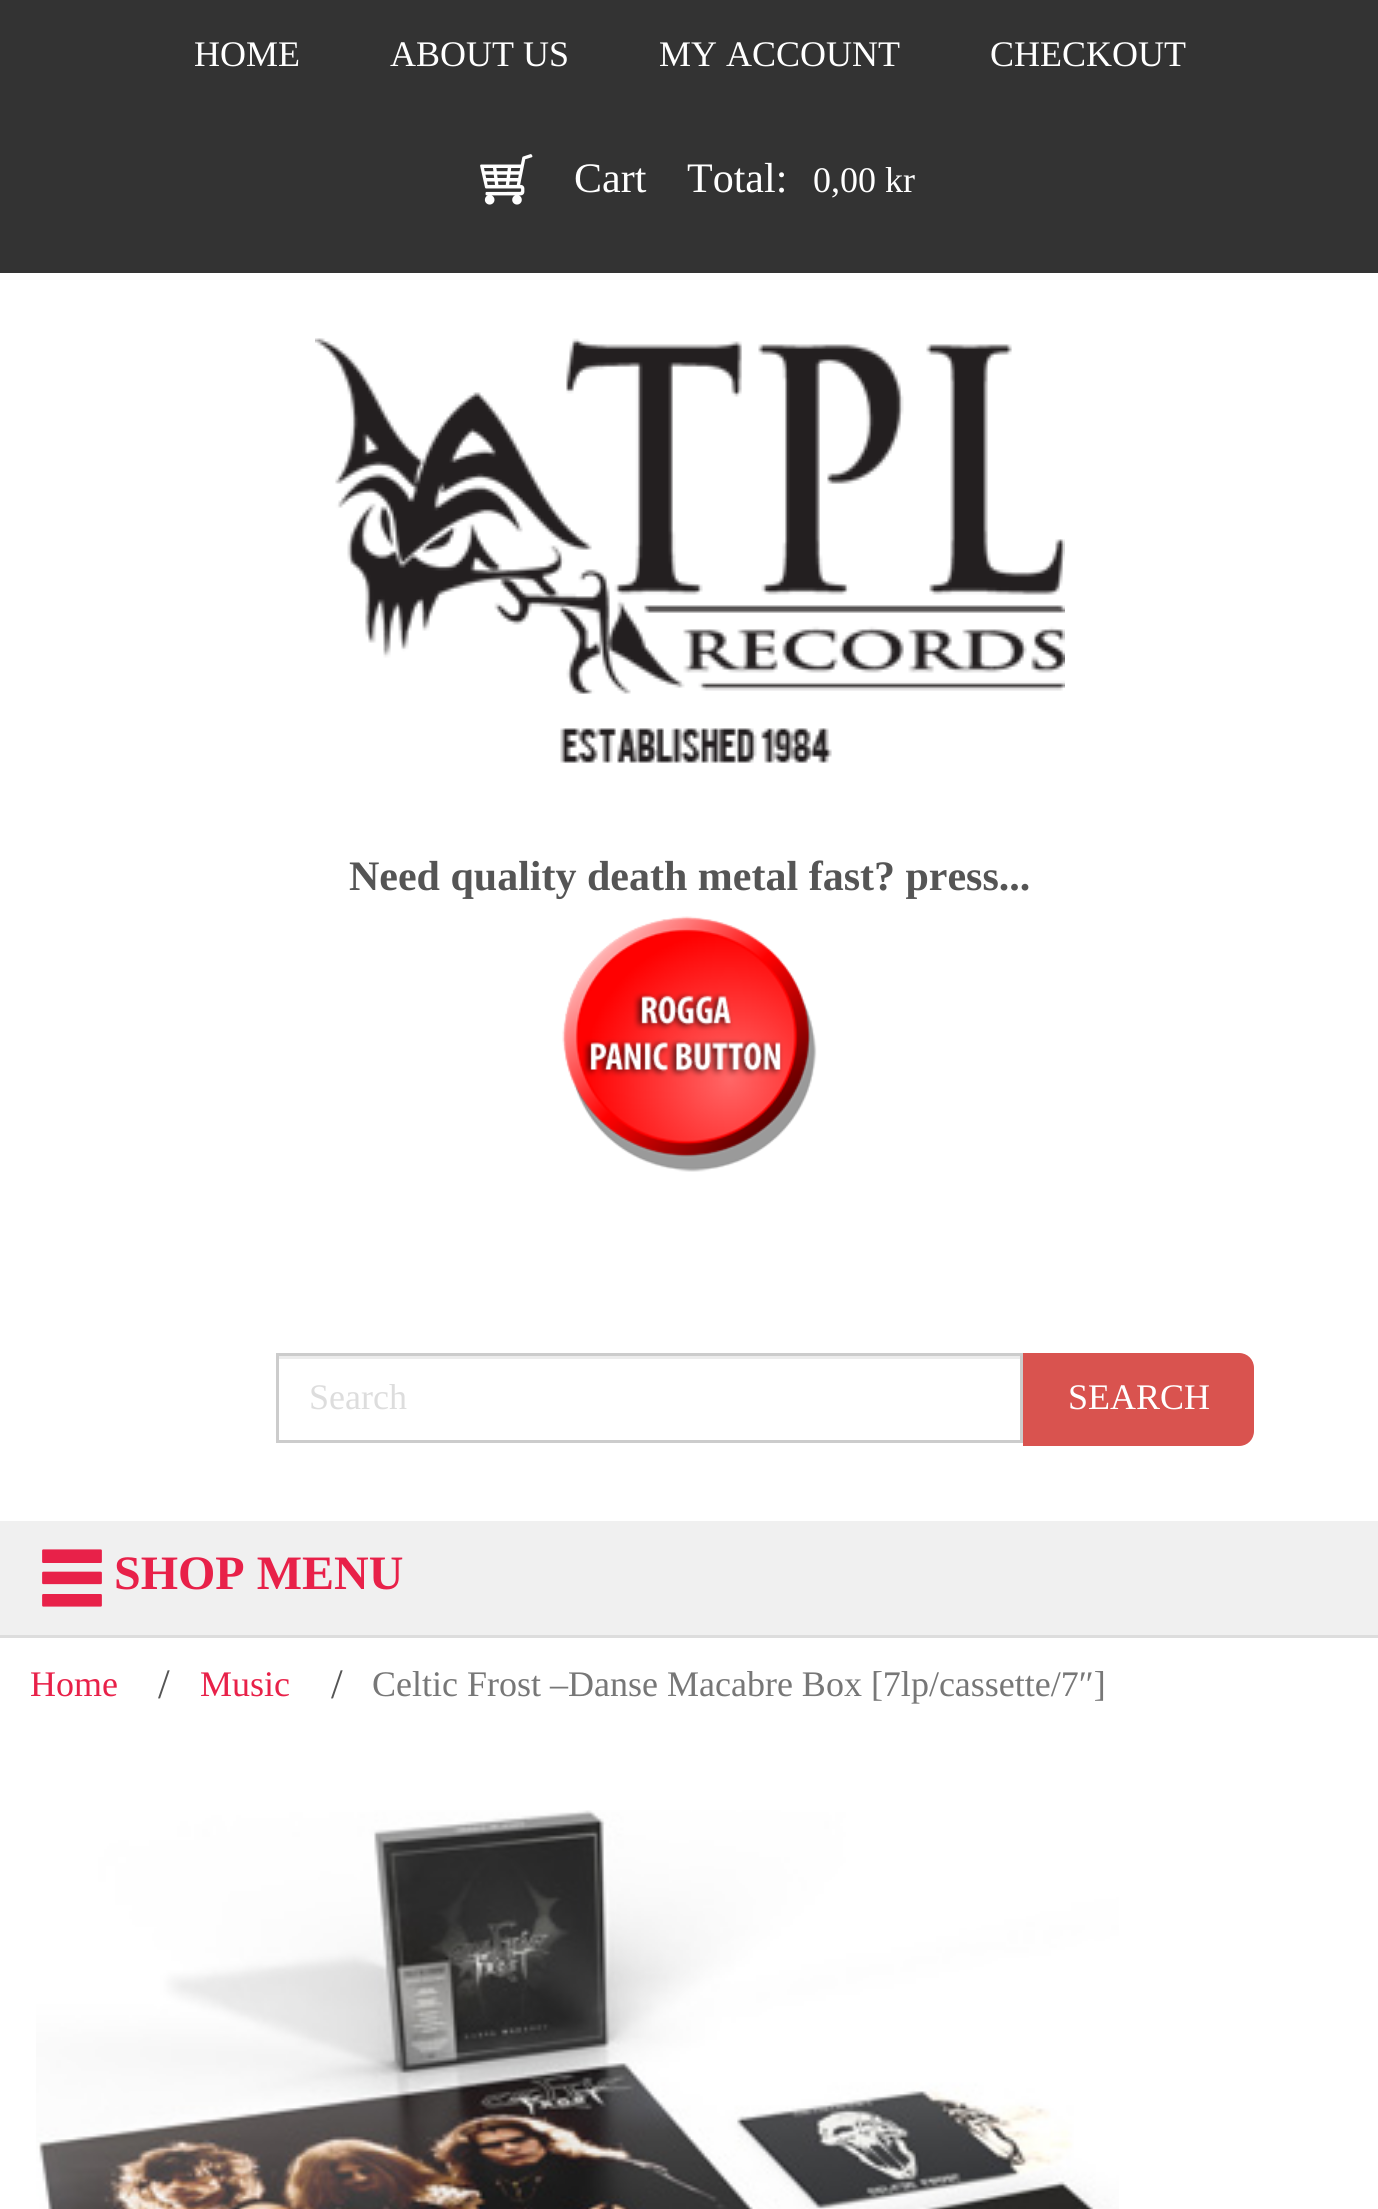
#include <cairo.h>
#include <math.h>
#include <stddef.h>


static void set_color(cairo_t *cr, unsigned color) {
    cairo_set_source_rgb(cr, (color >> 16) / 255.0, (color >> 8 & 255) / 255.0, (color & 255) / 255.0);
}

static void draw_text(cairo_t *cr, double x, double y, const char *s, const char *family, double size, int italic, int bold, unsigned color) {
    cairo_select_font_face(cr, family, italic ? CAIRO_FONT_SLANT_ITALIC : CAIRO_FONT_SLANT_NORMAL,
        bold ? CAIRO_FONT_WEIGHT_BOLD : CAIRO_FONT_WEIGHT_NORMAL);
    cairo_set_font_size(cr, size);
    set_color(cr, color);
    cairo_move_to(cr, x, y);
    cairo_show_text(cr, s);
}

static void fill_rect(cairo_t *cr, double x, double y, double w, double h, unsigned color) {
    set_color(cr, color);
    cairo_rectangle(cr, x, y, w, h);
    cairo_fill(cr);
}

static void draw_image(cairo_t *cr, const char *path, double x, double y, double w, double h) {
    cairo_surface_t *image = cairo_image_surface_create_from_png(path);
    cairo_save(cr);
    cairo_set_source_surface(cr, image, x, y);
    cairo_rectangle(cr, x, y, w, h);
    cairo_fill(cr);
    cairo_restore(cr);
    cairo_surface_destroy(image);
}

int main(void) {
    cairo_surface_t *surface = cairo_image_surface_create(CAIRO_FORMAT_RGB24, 1378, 2209);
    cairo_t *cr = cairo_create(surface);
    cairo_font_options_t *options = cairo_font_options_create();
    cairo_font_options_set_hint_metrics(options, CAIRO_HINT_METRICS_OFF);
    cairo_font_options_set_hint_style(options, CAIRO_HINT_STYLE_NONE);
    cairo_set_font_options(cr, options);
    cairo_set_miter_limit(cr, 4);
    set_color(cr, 0xFFFFFF);
    cairo_paint(cr);
    fill_rect(cr, 0, 0, 1378, 273, 0x333333);
    draw_text(cr, 194, 66, "HOME", "Liberation Serif", 36, 0, 0, 0xFFFFFF);
    draw_text(cr, 390, 66, "ABOUT US", "Liberation Serif", 36, 0, 0, 0xFFFFFF);
    draw_text(cr, 659, 66, "MY ACCOUNT", "Liberation Serif", 36, 0, 0, 0xFFFFFF);
    draw_text(cr, 990, 66, "CHECKOUT", "Liberation Serif", 36, 0, 0, 0xFFFFFF);
    draw_image(cr, "assets/img1.png", 480, 154, 53, 51);
    draw_text(cr, 574, 192, "Cart", "Liberation Serif", 42, 0, 0, 0xFFFFFF);
    draw_text(cr, 687, 192, "Total:", "Liberation Serif", 42, 0, 0, 0xFFFFFF);
    draw_text(cr, 813, 192, "0,00 kr", "Liberation Serif", 36, 0, 0, 0xFFFFFF);
    draw_image(cr, "assets/img2.png", 315, 338, 750, 425);
    draw_text(cr, 349, 890, "Need quality death metal fast? press...", "Liberation Serif", 42, 0, 1, 0x555555);
    draw_image(cr, "assets/img3.png", 562, 916, 255, 256);
    fill_rect(cr, 279, 1356, 741, 3, 0xECECEC);
    cairo_rectangle(cr, 277.5, 1354.5, 744, 87);
    set_color(cr, 0xCCCCCC);
    cairo_set_line_width(cr, 3);
    cairo_stroke(cr);
    draw_text(cr, 309, 1409, "Search", "Liberation Serif", 36, 0, 0, 0xDDDDDD);
    set_color(cr, 0xD9534F);
    cairo_new_path(cr);
    cairo_move_to(cr, 1023, 1353);
    cairo_line_to(cr, 1239, 1353);
    cairo_curve_to(cr, 1247.5, 1353, 1254, 1359.5, 1254, 1368);
    cairo_line_to(cr, 1254, 1431);
    cairo_curve_to(cr, 1254, 1439.5, 1247.5, 1446, 1239, 1446);
    cairo_line_to(cr, 1023, 1446);
    cairo_close_path(cr);
    cairo_fill(cr);
    draw_text(cr, 1068, 1409, "SEARCH", "Liberation Serif", 36, 0, 0, 0xFFFFFF);
    fill_rect(cr, 0, 1521, 1378, 114, 0xF0F0F0);
    draw_image(cr, "assets/img4.png", 42, 1549, 60, 58);
    draw_text(cr, 114, 1589, "SHOP MENU", "Liberation Serif", 48, 0, 1, 0xE82149);
    fill_rect(cr, 0, 1635, 1378, 3, 0xDDDDDD);
    draw_text(cr, 30, 1696, "Home", "Liberation Serif", 36, 0, 0, 0xE82149);
    draw_text(cr, 158, 1698, "/", "Liberation Serif", 42, 0, 0, 0x555555);
    draw_text(cr, 200, 1696, "Music", "Liberation Serif", 36, 0, 0, 0xE82149);
    draw_text(cr, 331, 1698, "/", "Liberation Serif", 42, 0, 0, 0x555555);
    draw_text(cr, 372, 1696, "Celtic Frost –Danse Macabre Box [7lp/cassette/7″]", "Liberation Serif", 36, 0, 0, 0x777777);
    draw_image(cr, "assets/img5.png", 36, 1810, 1083, 399);
    cairo_surface_write_to_png(surface, "output.png");
    cairo_font_options_destroy(options);
    cairo_destroy(cr);
    cairo_surface_destroy(surface);
    return 0;
}
